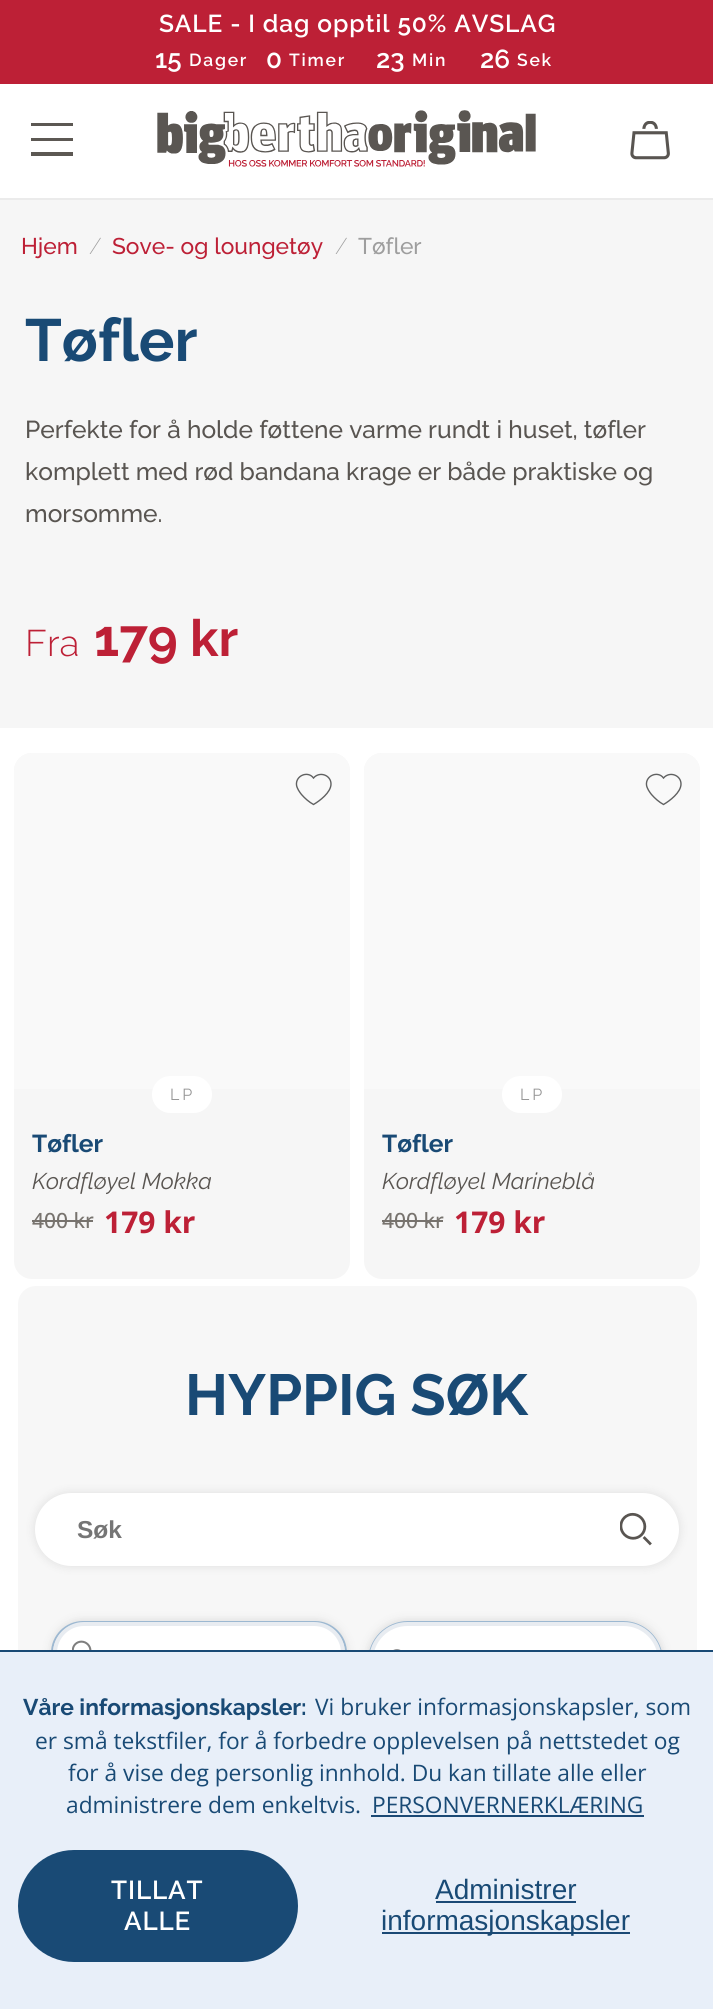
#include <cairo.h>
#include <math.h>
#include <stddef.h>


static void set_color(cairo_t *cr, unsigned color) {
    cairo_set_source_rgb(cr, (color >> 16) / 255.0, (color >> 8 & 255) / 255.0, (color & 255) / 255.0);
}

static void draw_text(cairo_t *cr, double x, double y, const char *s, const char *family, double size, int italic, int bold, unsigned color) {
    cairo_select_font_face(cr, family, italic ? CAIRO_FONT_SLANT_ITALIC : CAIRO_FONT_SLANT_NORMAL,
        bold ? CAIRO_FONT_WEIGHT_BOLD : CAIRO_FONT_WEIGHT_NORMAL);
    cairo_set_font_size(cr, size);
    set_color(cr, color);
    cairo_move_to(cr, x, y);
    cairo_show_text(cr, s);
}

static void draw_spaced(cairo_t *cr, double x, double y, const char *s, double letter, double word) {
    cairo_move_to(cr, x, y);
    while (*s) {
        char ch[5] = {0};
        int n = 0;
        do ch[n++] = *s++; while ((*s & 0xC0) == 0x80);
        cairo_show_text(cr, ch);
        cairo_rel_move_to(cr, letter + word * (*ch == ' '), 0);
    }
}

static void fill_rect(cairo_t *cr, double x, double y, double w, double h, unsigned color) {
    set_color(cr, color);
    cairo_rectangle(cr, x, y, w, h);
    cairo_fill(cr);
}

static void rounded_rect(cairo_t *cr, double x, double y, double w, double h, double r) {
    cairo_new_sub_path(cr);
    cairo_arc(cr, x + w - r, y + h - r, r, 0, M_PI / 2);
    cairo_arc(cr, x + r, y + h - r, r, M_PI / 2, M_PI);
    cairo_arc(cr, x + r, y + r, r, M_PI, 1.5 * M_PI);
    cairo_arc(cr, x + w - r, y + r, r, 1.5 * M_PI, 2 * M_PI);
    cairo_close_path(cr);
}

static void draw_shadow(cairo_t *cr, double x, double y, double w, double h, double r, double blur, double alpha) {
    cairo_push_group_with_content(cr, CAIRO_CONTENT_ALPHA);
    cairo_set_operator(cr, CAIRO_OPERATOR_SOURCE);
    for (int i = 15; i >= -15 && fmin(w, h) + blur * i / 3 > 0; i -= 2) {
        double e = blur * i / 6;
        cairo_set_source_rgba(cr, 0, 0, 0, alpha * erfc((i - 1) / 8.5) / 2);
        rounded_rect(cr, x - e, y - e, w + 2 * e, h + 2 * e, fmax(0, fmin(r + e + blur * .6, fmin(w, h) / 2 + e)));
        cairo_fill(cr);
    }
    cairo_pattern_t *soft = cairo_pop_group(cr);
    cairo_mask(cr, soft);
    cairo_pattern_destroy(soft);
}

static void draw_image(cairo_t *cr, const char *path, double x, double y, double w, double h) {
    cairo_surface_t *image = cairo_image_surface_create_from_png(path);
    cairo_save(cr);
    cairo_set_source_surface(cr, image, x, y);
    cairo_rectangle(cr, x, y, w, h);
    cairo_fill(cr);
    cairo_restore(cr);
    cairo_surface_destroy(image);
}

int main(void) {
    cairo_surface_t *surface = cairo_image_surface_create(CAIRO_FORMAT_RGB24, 713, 2009);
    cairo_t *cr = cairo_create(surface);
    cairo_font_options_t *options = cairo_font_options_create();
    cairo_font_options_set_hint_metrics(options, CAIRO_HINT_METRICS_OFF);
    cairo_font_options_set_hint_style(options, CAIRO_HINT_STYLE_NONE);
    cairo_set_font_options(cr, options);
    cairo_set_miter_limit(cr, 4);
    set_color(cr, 0xFFFFFF);
    cairo_paint(cr);
    fill_rect(cr, 0, 0, 713, 84, 0xBD2036);
    cairo_select_font_face(cr, "Raleway SemiBold", CAIRO_FONT_SLANT_NORMAL, CAIRO_FONT_WEIGHT_NORMAL);
    cairo_set_font_size(cr, 24.5);
    set_color(cr, 0xFFFFFF);
    draw_spaced(cr, 159, 32, "SALE - I dag opptil 50% AVSLAG", 0.9, 0);
    draw_text(cr, 155, 68, "15", "Raleway SemiBold", 26, 0, 0, 0xFFFFFF);
    cairo_set_font_size(cr, 17.5);
    draw_spaced(cr, 189, 66, "Dager", 1.75, 0);
    draw_text(cr, 266, 68, "0", "Raleway SemiBold", 26, 0, 0, 0xFFFFFF);
    cairo_set_font_size(cr, 17.5);
    draw_spaced(cr, 289, 66, "Timer", 1.75, 0);
    draw_text(cr, 376, 68, "23", "Raleway SemiBold", 26, 0, 0, 0xFFFFFF);
    cairo_set_font_size(cr, 17.5);
    draw_spaced(cr, 412, 66, "Min", 1.75, 0);
    draw_text(cr, 480, 68, "26", "Raleway SemiBold", 26, 0, 0, 0xFFFFFF);
    cairo_set_font_size(cr, 17.5);
    draw_spaced(cr, 517, 66, "Sek", 1.75, 0);
    fill_rect(cr, 0, 198, 713, 2, 0xEBEBEB);
    set_color(cr, 0x5C5853);
    cairo_set_fill_rule(cr, CAIRO_FILL_RULE_EVEN_ODD);
    cairo_new_path(cr);
    cairo_move_to(cr, 73, 126);
    cairo_line_to(cr, 31, 126);
    cairo_line_to(cr, 31, 123);
    cairo_line_to(cr, 73, 123);
    cairo_close_path(cr);
    cairo_move_to(cr, 73, 141);
    cairo_line_to(cr, 31, 141);
    cairo_line_to(cr, 31, 138);
    cairo_line_to(cr, 73, 138);
    cairo_close_path(cr);
    cairo_move_to(cr, 31, 156);
    cairo_line_to(cr, 73, 156);
    cairo_line_to(cr, 73, 152);
    cairo_line_to(cr, 31, 152);
    cairo_close_path(cr);
    cairo_fill(cr);
    draw_image(cr, "assets/img1.png", 157, 110, 379, 57);
    draw_image(cr, "assets/img2.png", 630, 121, 40, 39);
    fill_rect(cr, 0, 200, 713, 528, 0xF6F6F6);
    draw_text(cr, 21, 254, "Hjem", "Raleway Medium", 22.75, 0, 0, 0xBD2036);
    draw_text(cr, 89, 254, "/", "Raleway ExtraLight", 22.75, 0, 0, 0x9E9E9E);
    draw_text(cr, 112, 254, "Sove- og loungetøy", "Raleway Medium", 22.75, 0, 0, 0xBD2036);
    draw_text(cr, 335, 254, "/", "Raleway ExtraLight", 22.75, 0, 0, 0x9E9E9E);
    draw_text(cr, 358, 254, "Tøfler", "Raleway Medium", 22.75, 0, 0, 0x9E9E9E);
    draw_text(cr, 25, 361, "Tøfler", "Raleway", 59.5, 0, 1, 0x194A75);
    draw_text(cr, 25, 438, "Perfekte for å holde føttene varme rundt i huset, tøfler", "Raleway Medium", 24.5, 0, 0, 0x595551);
    draw_text(cr, 25, 480, "komplett med rød bandana krage er både praktiske og", "Raleway Medium", 24.5, 0, 0, 0x595551);
    draw_text(cr, 25, 522, "morsomme.", "Raleway Medium", 24.5, 0, 0, 0x595551);
    draw_text(cr, 25, 656, "Fra", "Raleway Light", 37, 0, 0, 0xBD2036);
    draw_text(cr, 94, 656, "179 kr", "Raleway", 51, 0, 1, 0xBD2036);
    set_color(cr, 0xF6F6F6);
    rounded_rect(cr, 14, 753, 336, 526, 18);
    cairo_fill(cr);
    set_color(cr, 0xF9F9F9);
    cairo_new_path(cr);
    cairo_move_to(cr, 32, 753);
    cairo_line_to(cr, 332, 753);
    cairo_curve_to(cr, 342, 753, 350, 761, 350, 771);
    cairo_line_to(cr, 350, 1089);
    cairo_line_to(cr, 14, 1089);
    cairo_line_to(cr, 14, 771);
    cairo_curve_to(cr, 14, 761, 22, 753, 32, 753);
    cairo_close_path(cr);
    cairo_fill(cr);
    cairo_new_path(cr);
    cairo_move_to(cr, 331, 784);
    cairo_curve_to(cr, 331, 775, 319.5, 771, 313.5, 778);
    cairo_curve_to(cr, 308, 770.5, 295.5, 775.5, 296.5, 785);
    cairo_curve_to(cr, 297, 788.5, 299.5, 792, 301.5, 794.5);
    cairo_curve_to(cr, 305, 798.5, 309, 802, 313.5, 804.5);
    cairo_curve_to(cr, 319.5, 801, 331, 792.5, 331, 784);
    cairo_close_path(cr);
    set_color(cr, 0x606161);
    cairo_set_line_width(cr, 1.4);
    cairo_stroke(cr);
    set_color(cr, 0xFFFFFF);
    rounded_rect(cr, 152, 1076, 60, 37, 18.5);
    cairo_fill(cr);
    cairo_select_font_face(cr, "Raleway", CAIRO_FONT_SLANT_NORMAL, CAIRO_FONT_WEIGHT_NORMAL);
    cairo_set_font_size(cr, 16);
    set_color(cr, 0x979797);
    draw_spaced(cr, 170, 1100, "LP", 3, 0);
    draw_text(cr, 32, 1152, "Tøfler", "Raleway", 24.5, 0, 1, 0x194A75);
    draw_text(cr, 32, 1189, "Kordfløyel Mokka", "Raleway", 22.75, 1, 0, 0x595551);
    draw_text(cr, 32, 1228, "400 kr", "Open Sans Medium", 21, 0, 0, 0x77736E);
    fill_rect(cr, 32, 1220, 61, 2, 0x77736E);
    draw_text(cr, 104, 1233, "179 kr", "Open Sans", 30, 0, 1, 0xBD2036);
    set_color(cr, 0xF6F6F6);
    rounded_rect(cr, 364, 753, 336, 526, 18);
    cairo_fill(cr);
    set_color(cr, 0xF9F9F9);
    cairo_new_path(cr);
    cairo_move_to(cr, 382, 753);
    cairo_line_to(cr, 682, 753);
    cairo_curve_to(cr, 692, 753, 700, 761, 700, 771);
    cairo_line_to(cr, 700, 1089);
    cairo_line_to(cr, 364, 1089);
    cairo_line_to(cr, 364, 771);
    cairo_curve_to(cr, 364, 761, 372, 753, 382, 753);
    cairo_close_path(cr);
    cairo_fill(cr);
    cairo_new_path(cr);
    cairo_move_to(cr, 681, 784);
    cairo_curve_to(cr, 681, 775, 669.5, 771, 663.5, 778);
    cairo_curve_to(cr, 658, 770.5, 645.5, 775.5, 646.5, 785);
    cairo_curve_to(cr, 647, 788.5, 649.5, 792, 651.5, 794.5);
    cairo_curve_to(cr, 655, 798.5, 659, 802, 663.5, 804.5);
    cairo_curve_to(cr, 669.5, 801, 681, 792.5, 681, 784);
    cairo_close_path(cr);
    set_color(cr, 0x606161);
    cairo_stroke(cr);
    set_color(cr, 0xFFFFFF);
    rounded_rect(cr, 502, 1076, 60, 37, 18.5);
    cairo_fill(cr);
    cairo_select_font_face(cr, "Raleway", CAIRO_FONT_SLANT_NORMAL, CAIRO_FONT_WEIGHT_NORMAL);
    cairo_set_font_size(cr, 16);
    set_color(cr, 0x979797);
    draw_spaced(cr, 520, 1100, "LP", 3, 0);
    draw_text(cr, 382, 1152, "Tøfler", "Raleway", 24.5, 0, 1, 0x194A75);
    draw_text(cr, 382, 1189, "Kordfløyel Marineblå", "Raleway", 22.75, 1, 0, 0x595551);
    draw_text(cr, 382, 1228, "400 kr", "Open Sans Medium", 21, 0, 0, 0x77736E);
    fill_rect(cr, 382, 1220, 61, 2, 0x77736E);
    draw_text(cr, 454, 1233, "179 kr", "Open Sans", 30, 0, 1, 0xBD2036);
    set_color(cr, 0xF7F7F7);
    rounded_rect(cr, 18, 1286, 679, 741, 18);
    cairo_fill(cr);
    draw_text(cr, 185, 1415, "HYPPIG SØK", "Raleway", 57.75, 0, 1, 0x194A75);
    set_color(cr, 0x000000);
    draw_shadow(cr, 35, 1493, 644, 73, 36.5, 5, 0.1);
    set_color(cr, 0xFFFFFF);
    rounded_rect(cr, 35, 1493, 644, 73, 36.5);
    cairo_fill(cr);
    draw_text(cr, 77, 1538, "Søk", "Liberation Sans", 24.5, 0, 1, 0x757575);
    draw_image(cr, "assets/img3.png", 620, 1512, 32, 34);
    set_color(cr, 0xD1D1D1);
    draw_shadow(cr, 53, 1622, 292, 62, 31, 5, 1);
    rounded_rect(cr, 52, 1622, 294, 62, 31);
    set_color(cr, 0x9CB8D1);
    cairo_set_line_width(cr, 2);
    cairo_stroke(cr);
    set_color(cr, 0xFFFFFF);
    rounded_rect(cr, 55, 1624, 288, 58, 29);
    cairo_fill_preserve(cr);
    set_color(cr, 0xE8ECF1);
    cairo_set_line_width(cr, 4);
    cairo_stroke(cr);
    draw_image(cr, "assets/img4.png", 72, 1640, 20, 10);
    set_color(cr, 0xD1D1D1);
    draw_shadow(cr, 369, 1622, 293, 77, 38.5, 5, 1);
    rounded_rect(cr, 369, 1622, 293, 78, 39);
    set_color(cr, 0x9CB8D1);
    cairo_set_line_width(cr, 2);
    cairo_stroke(cr);
    set_color(cr, 0xFFFFFF);
    rounded_rect(cr, 371, 1624, 289, 73, 36.5);
    cairo_fill_preserve(cr);
    set_color(cr, 0xE8ECF1);
    cairo_set_line_width(cr, 4);
    cairo_stroke(cr);
    draw_image(cr, "assets/img5.png", 393, 1649, 8, 1);
    fill_rect(cr, 0, 1652, 713, 357, 0xE8EFF9);
    fill_rect(cr, 0, 1650, 713, 2, 0x194A75);
    draw_text(cr, 23, 1715, "Våre informasjonskapsler:", "Raleway", 22.75, 0, 1, 0x194A75);
    draw_text(cr, 315, 1715, "Vi bruker informasjonskapsler, som", "Open Sans", 22.75, 0, 0, 0x194A75);
    draw_text(cr, 35, 1749, "er små tekstfiler, for å forbedre opplevelsen på nettstedet og", "Open Sans", 22.75, 0, 0, 0x194A75);
    draw_text(cr, 68, 1781, "for å vise deg personlig innhold. Du kan tillate alle eller", "Open Sans", 22.75, 0, 0, 0x194A75);
    draw_text(cr, 66, 1813, "administrere dem enkeltvis.", "Open Sans", 22.75, 0, 0, 0x194A75);
    draw_text(cr, 372, 1813, "PERSONVERNERKLÆRING", "Open Sans", 22.75, 0, 0, 0x194A75);
    fill_rect(cr, 371, 1815, 273, 2, 0x1B4975);
    set_color(cr, 0x194A75);
    rounded_rect(cr, 18, 1850, 280, 112, 56);
    cairo_fill(cr);
    cairo_select_font_face(cr, "Raleway SemiBold", CAIRO_FONT_SLANT_NORMAL, CAIRO_FONT_WEIGHT_NORMAL);
    cairo_set_font_size(cr, 26);
    set_color(cr, 0xFFFFFF);
    draw_spaced(cr, 111, 1899, "TILLAT", 0.9, 0);
    draw_spaced(cr, 124, 1930, "ALLE", 0.9, 0);
    draw_text(cr, 435, 1899, "Administrer", "Liberation Sans", 28, 0, 0, 0x194A75);
    fill_rect(cr, 436, 1901, 140, 2, 0x1B4975);
    fill_rect(cr, 382, 1932, 248, 2, 0x1B4975);
    draw_text(cr, 381, 1930, "informasjonskapsler", "Liberation Sans", 28, 0, 0, 0x194A75);
    cairo_surface_write_to_png(surface, "output.png");
    cairo_font_options_destroy(options);
    cairo_destroy(cr);
    cairo_surface_destroy(surface);
    return 0;
}
